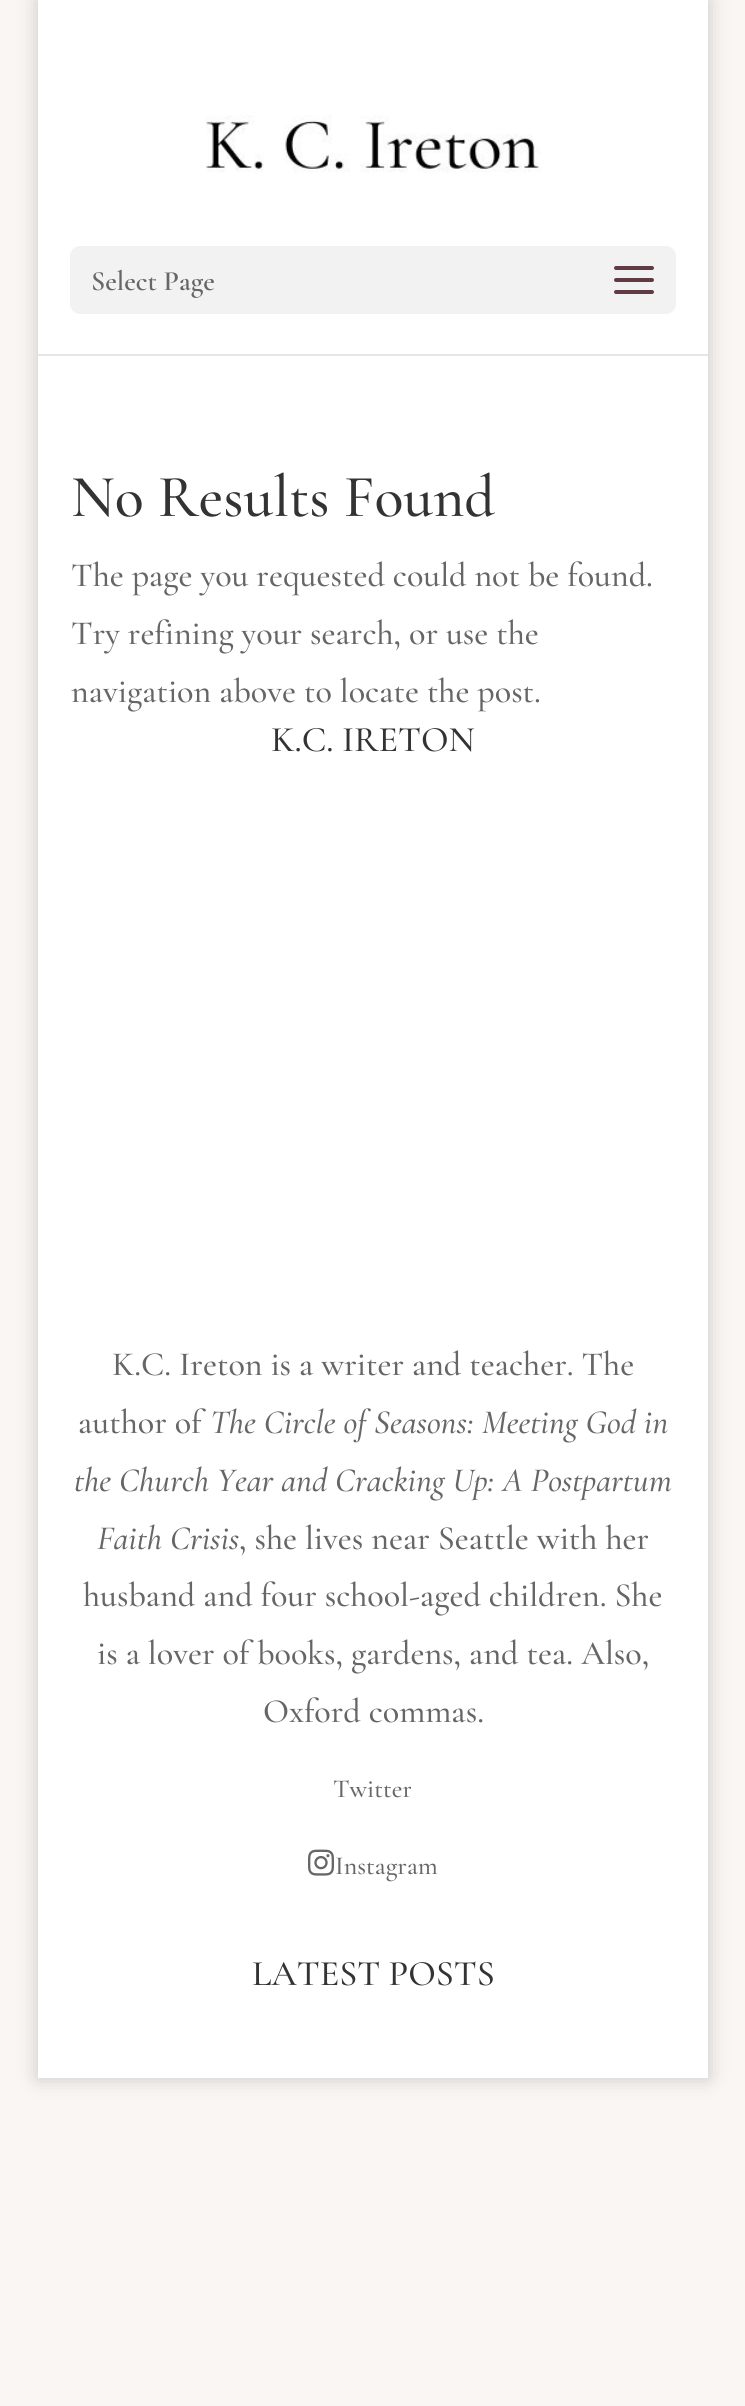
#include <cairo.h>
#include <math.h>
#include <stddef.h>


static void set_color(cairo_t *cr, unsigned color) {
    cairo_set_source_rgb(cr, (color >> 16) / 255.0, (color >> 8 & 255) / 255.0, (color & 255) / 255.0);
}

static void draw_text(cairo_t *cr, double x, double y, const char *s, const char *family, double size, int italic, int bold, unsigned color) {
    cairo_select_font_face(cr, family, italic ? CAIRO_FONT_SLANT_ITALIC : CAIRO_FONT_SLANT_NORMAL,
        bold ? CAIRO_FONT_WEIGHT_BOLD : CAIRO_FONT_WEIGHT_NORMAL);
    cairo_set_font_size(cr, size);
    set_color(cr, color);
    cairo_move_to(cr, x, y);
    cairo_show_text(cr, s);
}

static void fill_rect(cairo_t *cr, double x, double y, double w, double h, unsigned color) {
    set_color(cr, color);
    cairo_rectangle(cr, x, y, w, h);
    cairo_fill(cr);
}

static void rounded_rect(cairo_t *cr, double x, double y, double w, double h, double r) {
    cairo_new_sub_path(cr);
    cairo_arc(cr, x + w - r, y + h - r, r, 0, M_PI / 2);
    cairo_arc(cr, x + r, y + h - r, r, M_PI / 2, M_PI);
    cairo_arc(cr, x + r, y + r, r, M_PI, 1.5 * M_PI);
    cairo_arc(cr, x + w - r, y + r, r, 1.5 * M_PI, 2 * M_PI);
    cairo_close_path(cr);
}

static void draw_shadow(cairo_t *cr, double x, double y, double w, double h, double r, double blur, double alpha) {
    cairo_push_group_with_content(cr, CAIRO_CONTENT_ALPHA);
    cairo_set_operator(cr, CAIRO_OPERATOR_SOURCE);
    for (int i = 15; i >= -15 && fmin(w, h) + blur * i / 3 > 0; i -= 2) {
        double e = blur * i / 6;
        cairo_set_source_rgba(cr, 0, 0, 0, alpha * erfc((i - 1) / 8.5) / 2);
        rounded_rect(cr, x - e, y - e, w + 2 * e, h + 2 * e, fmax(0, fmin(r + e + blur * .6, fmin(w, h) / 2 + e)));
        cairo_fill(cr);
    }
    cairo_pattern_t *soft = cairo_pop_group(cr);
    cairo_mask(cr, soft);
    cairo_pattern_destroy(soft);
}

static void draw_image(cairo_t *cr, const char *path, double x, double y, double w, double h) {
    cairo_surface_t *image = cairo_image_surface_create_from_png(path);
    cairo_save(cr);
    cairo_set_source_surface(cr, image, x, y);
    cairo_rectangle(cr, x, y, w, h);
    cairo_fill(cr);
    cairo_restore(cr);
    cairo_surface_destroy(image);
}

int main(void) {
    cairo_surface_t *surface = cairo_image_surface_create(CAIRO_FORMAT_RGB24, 745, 2406);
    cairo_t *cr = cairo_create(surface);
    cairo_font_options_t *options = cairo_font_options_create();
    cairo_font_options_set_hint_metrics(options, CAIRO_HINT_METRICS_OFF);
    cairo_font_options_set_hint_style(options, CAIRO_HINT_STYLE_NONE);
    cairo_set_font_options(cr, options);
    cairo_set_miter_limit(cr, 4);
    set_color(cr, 0xF9F6F3);
    cairo_paint(cr);
    set_color(cr, 0x000000);
    draw_shadow(cr, 38, 0, 670, 2078, 0, 10, 0.2);
    fill_rect(cr, 38, 354, 670, 2, 0xE6E6E6);
    fill_rect(cr, 38, 0, 670, 354, 0xFFFFFF);
    draw_image(cr, "assets/img1.png", 206, 115, 336, 58);
    set_color(cr, 0xF2F2F2);
    rounded_rect(cr, 70, 246, 606, 68, 10);
    cairo_fill(cr);
    draw_text(cr, 91, 290, "Select Page", "Cormorant Garamond SemiBold", 28, 0, 0, 0x666666);
    draw_image(cr, "assets/img2.png", 614, 266, 40, 28);
    fill_rect(cr, 38, 356, 670, 1722, 0xFFFFFF);
    draw_text(cr, 71, 516, "No Results Found", "Cormorant Garamond Medium", 60, 0, 0, 0x333333);
    draw_text(cr, 71, 586, "The page you requested could not be found.", "Cormorant Garamond Medium", 34, 0, 0, 0x666666);
    draw_text(cr, 71, 644, "Try refining your search, or use the", "Cormorant Garamond Medium", 34, 0, 0, 0x666666);
    draw_text(cr, 71, 702, "navigation above to locate the post.", "Cormorant Garamond Medium", 34, 0, 0, 0x666666);
    draw_text(cr, 271, 751, "K.C. IRETON", "Cormorant Garamond Medium", 36, 0, 0, 0x333333);
    draw_text(cr, 112, 1375, "K.C. Ireton is a writer and teacher. The", "Cormorant Garamond Medium", 34, 0, 0, 0x666666);
    draw_text(cr, 78, 1433, "author of", "Cormorant Garamond Medium", 34, 0, 0, 0x666666);
    draw_text(cr, 210, 1433, "The Circle of Seasons: Meeting God in", "Cormorant Garamond Medium", 34, 1, 0, 0x666666);
    draw_text(cr, 74, 1491, "the Church Year and Cracking Up: A Postpartum", "Cormorant Garamond Medium", 34, 1, 0, 0x666666);
    draw_text(cr, 97, 1549, "Faith Crisis", "Cormorant Garamond Medium", 34, 1, 0, 0x666666);
    draw_text(cr, 239, 1549, ", she lives near Seattle with her", "Cormorant Garamond Medium", 34, 0, 0, 0x666666);
    draw_text(cr, 83, 1606, "husband and four school-aged children. She", "Cormorant Garamond Medium", 34, 0, 0, 0x666666);
    draw_text(cr, 97, 1664, "is a lover of books, gardens, and tea. Also,", "Cormorant Garamond Medium", 34, 0, 0, 0x666666);
    draw_text(cr, 263, 1722, "Oxford commas.", "Cormorant Garamond Medium", 34, 0, 0, 0x666666);
    draw_text(cr, 333, 1797, "Twitter", "Cormorant Garamond Medium", 26, 0, 0, 0x666666);
    draw_image(cr, "assets/img3.png", 308, 1849, 26, 27);
    draw_text(cr, 335, 1874, "Instagram", "Cormorant Garamond Medium", 26, 0, 0, 0x666666);
    draw_text(cr, 252, 1985, "LATEST POSTS", "Cormorant Garamond Medium", 36, 0, 0, 0x333333);
    cairo_surface_write_to_png(surface, "output.png");
    cairo_font_options_destroy(options);
    cairo_destroy(cr);
    cairo_surface_destroy(surface);
    return 0;
}
